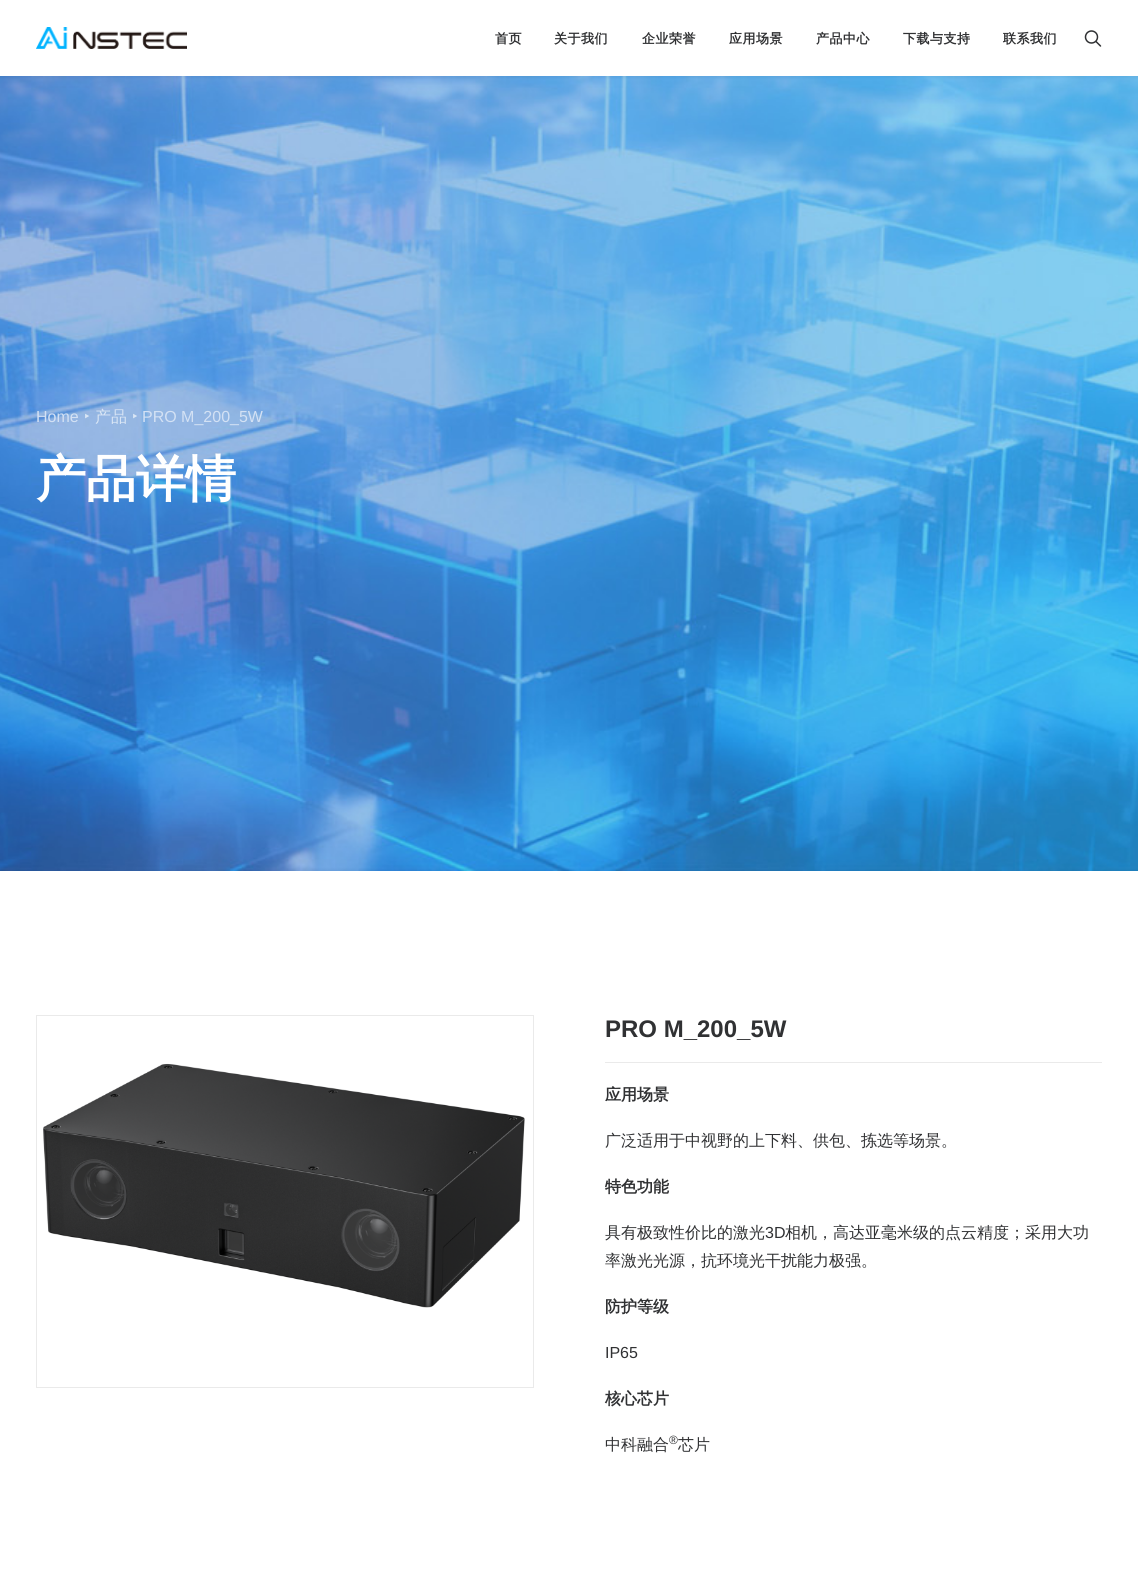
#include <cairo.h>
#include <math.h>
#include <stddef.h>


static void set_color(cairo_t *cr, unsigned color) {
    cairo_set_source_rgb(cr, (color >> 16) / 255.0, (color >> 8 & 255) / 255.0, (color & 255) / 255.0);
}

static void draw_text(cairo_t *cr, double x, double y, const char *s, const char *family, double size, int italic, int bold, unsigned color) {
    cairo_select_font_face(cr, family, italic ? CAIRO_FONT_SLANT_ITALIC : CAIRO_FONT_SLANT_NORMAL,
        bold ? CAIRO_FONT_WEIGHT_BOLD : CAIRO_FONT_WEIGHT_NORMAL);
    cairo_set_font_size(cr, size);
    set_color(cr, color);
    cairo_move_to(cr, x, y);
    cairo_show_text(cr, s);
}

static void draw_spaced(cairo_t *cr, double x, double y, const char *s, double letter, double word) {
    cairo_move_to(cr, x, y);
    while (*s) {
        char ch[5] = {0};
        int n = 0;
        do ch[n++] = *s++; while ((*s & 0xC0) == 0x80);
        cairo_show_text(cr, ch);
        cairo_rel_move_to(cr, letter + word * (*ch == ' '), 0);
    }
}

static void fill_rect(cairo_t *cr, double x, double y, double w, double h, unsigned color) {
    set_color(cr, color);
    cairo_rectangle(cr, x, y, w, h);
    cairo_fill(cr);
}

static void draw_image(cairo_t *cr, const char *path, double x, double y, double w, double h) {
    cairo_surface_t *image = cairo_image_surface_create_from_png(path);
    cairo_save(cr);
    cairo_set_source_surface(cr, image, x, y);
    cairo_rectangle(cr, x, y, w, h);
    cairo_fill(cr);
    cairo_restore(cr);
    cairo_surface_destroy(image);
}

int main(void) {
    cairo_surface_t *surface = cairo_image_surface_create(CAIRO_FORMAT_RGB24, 1138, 1590);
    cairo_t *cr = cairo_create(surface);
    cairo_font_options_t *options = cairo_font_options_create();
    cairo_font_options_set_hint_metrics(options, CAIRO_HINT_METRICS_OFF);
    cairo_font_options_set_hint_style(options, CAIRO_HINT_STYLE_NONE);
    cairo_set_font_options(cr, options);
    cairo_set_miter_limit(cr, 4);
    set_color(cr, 0xFFFFFF);
    cairo_paint(cr);
    draw_image(cr, "assets/img1.png", 36, 27, 151, 22);
    cairo_select_font_face(cr, "WenQuanYi Zen Hei", CAIRO_FONT_SLANT_NORMAL, CAIRO_FONT_WEIGHT_BOLD);
    cairo_set_font_size(cr, 13);
    set_color(cr, 0x303133);
    draw_spaced(cr, 495, 43, "首页", 0.5, 0);
    draw_spaced(cr, 554, 43, "关于我们", 0.5, 0);
    draw_spaced(cr, 642, 43, "企业荣誉", 0.5, 0);
    draw_spaced(cr, 729, 43, "应用场景", 0.5, 0);
    draw_spaced(cr, 816, 43, "产品中心", 0.5, 0);
    draw_spaced(cr, 903, 43, "下载与支持", 0.5, 0);
    draw_spaced(cr, 1003, 43, "联系我们", 0.5, 0);
    draw_image(cr, "assets/img2.png", 1084, 30, 18, 17);
    draw_image(cr, "assets/img3.png", 0, 76, 1138, 795);
    draw_text(cr, 36, 422, "Home", "Liberation Sans", 16, 0, 0, 0xD3E1F4);
    draw_text(cr, 84, 422, "‣", "Noto Sans", 16, 0, 0, 0xDAE6F5);
    draw_text(cr, 95, 422, "产品", "WenQuanYi Zen Hei Medium", 16, 0, 0, 0xDAE6F5);
    draw_text(cr, 132, 422, "‣", "Noto Sans", 16, 0, 0, 0xDAE6F5);
    draw_text(cr, 142, 422, "PRO M_200_5W", "Liberation Sans", 16, 0, 0, 0xD3E1F4);
    draw_text(cr, 36, 496, "产品详情", "WenQuanYi Zen Hei", 50, 0, 1, 0xFFFFFF);
    cairo_rectangle(cr, 36.5, 1015.5, 497, 372);
    set_color(cr, 0xEAEAEA);
    cairo_set_line_width(cr, 1);
    cairo_stroke(cr);
    draw_image(cr, "assets/img4.png", 43, 1063, 482, 245);
    draw_text(cr, 605, 1037, "PRO M_200_5W", "Liberation Sans", 24, 0, 1, 0x303133);
    fill_rect(cr, 605, 1062, 497, 1, 0xEAEAEA);
    draw_text(cr, 605, 1100, "应用场景", "WenQuanYi Zen Hei", 16, 0, 1, 0x303133);
    draw_text(cr, 605, 1146, "广泛适用于中视野的上下料、供包、拣选等场景。", "WenQuanYi Zen Hei Medium", 16, 0, 0, 0x303133);
    draw_text(cr, 605, 1192, "特色功能", "WenQuanYi Zen Hei", 16, 0, 1, 0x303133);
    draw_text(cr, 605, 1238, "具有极致性价比的激光", "WenQuanYi Zen Hei Medium", 16, 0, 0, 0x303133);
    draw_text(cr, 765, 1238, "3D", "Liberation Sans", 16, 0, 0, 0x303133);
    draw_text(cr, 785, 1238, "相机，高达亚毫米级的点云精度；采用大功", "WenQuanYi Zen Hei Medium", 16, 0, 0, 0x303133);
    draw_text(cr, 605, 1266, "率激光光源，抗环境光干扰能力极强。", "WenQuanYi Zen Hei Medium", 16, 0, 0, 0x303133);
    draw_text(cr, 605, 1312, "防护等级", "WenQuanYi Zen Hei", 16, 0, 1, 0x303133);
    draw_text(cr, 605, 1358, "IP65", "Liberation Sans", 16, 0, 0, 0x303133);
    draw_text(cr, 605, 1404, "核心芯片", "WenQuanYi Zen Hei", 16, 0, 1, 0x303133);
    draw_text(cr, 605, 1450, "中科融合", "WenQuanYi Zen Hei Medium", 16, 0, 0, 0x303133);
    draw_text(cr, 678, 1450, "芯片", "WenQuanYi Zen Hei Medium", 16, 0, 0, 0x303133);
    draw_text(cr, 669, 1444, "®", "Liberation Sans", 12, 0, 0, 0x303133);
    cairo_surface_write_to_png(surface, "output.png");
    cairo_font_options_destroy(options);
    cairo_destroy(cr);
    cairo_surface_destroy(surface);
    return 0;
}
